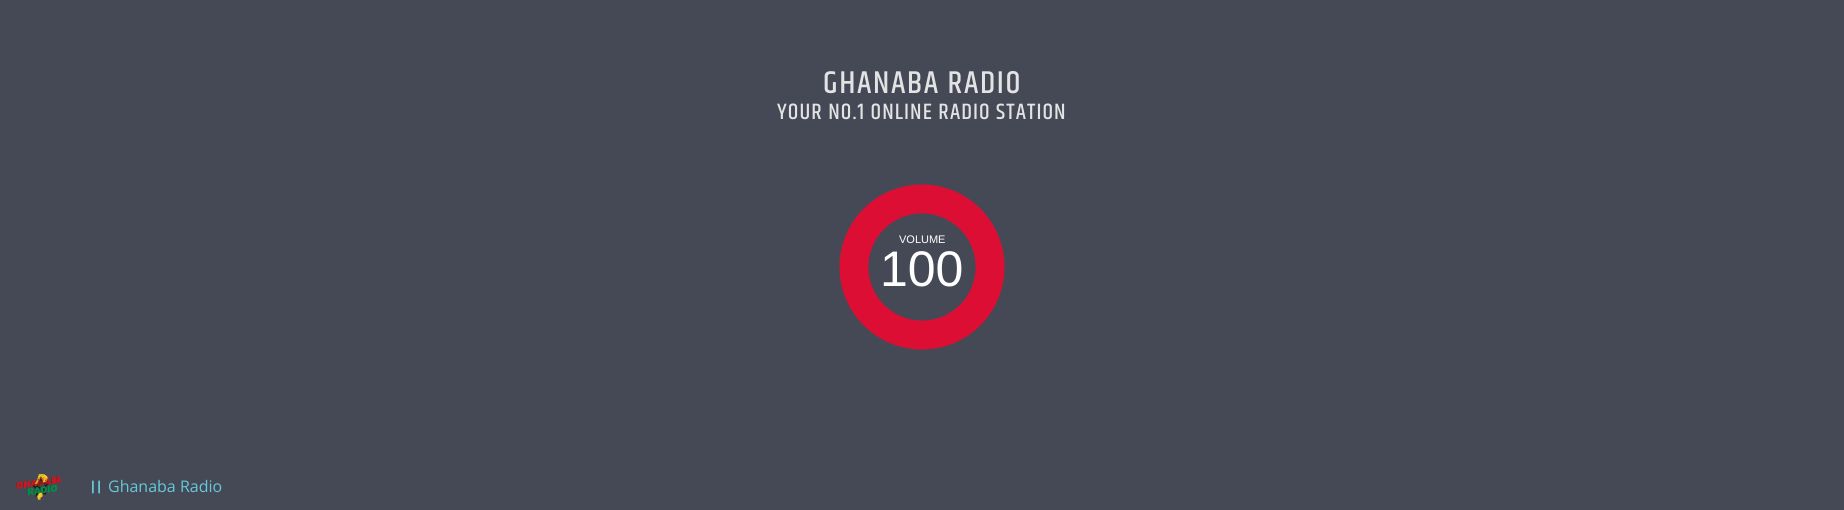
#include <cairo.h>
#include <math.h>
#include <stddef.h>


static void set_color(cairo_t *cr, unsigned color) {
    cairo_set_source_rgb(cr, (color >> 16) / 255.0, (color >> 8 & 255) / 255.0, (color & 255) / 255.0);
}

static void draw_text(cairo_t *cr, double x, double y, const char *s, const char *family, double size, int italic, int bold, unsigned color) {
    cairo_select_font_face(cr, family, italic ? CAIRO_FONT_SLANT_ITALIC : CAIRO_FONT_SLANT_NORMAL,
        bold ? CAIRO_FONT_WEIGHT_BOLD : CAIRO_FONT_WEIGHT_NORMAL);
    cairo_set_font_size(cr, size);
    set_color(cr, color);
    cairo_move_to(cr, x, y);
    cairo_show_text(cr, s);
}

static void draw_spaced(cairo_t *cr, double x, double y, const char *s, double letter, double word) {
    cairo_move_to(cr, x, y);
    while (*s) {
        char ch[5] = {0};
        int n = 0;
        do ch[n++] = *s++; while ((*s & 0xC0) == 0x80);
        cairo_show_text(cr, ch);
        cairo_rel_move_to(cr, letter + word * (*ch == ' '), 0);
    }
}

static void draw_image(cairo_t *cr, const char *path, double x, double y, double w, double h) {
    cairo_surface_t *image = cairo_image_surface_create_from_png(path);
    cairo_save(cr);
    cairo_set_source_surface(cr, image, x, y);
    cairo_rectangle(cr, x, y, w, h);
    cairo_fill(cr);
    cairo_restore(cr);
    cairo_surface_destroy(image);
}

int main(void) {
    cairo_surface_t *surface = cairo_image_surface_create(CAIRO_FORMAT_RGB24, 1844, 510);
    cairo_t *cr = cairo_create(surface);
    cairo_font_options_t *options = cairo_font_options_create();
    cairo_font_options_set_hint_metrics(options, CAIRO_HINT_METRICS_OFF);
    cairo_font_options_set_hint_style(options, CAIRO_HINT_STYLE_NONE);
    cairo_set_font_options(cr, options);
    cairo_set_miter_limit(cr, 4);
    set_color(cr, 0x454955);
    cairo_paint(cr);
    cairo_select_font_face(cr, "Khand Medium", CAIRO_FONT_SLANT_NORMAL, CAIRO_FONT_WEIGHT_NORMAL);
    cairo_set_font_size(cr, 32);
    set_color(cr, 0xE3E3E5);
    draw_spaced(cr, 823, 93, "GHANABA RADIO", 1.6, 0);
    cairo_set_font_size(cr, 22.6);
    draw_spaced(cr, 777, 119, "YOUR NO.1 ONLINE RADIO STATION", 1.1, 0);
    draw_image(cr, "assets/img1.png", 839, 184, 166, 166);
    draw_text(cr, 899, 243, "VOLUME", "Liberation Sans", 11, 0, 0, 0xFFFFFF);
    draw_text(cr, 880, 286, "100", "Liberation Sans", 50, 0, 0, 0xFFFFFF);
    draw_image(cr, "assets/img2.png", 16, 473, 45, 27);
    draw_image(cr, "assets/img3.png", 92, 480, 8, 14);
    draw_text(cr, 108, 492, "Ghanaba Radio", "Open Sans", 16, 0, 0, 0x64C9D9);
    cairo_surface_write_to_png(surface, "output.png");
    cairo_font_options_destroy(options);
    cairo_destroy(cr);
    cairo_surface_destroy(surface);
    return 0;
}
